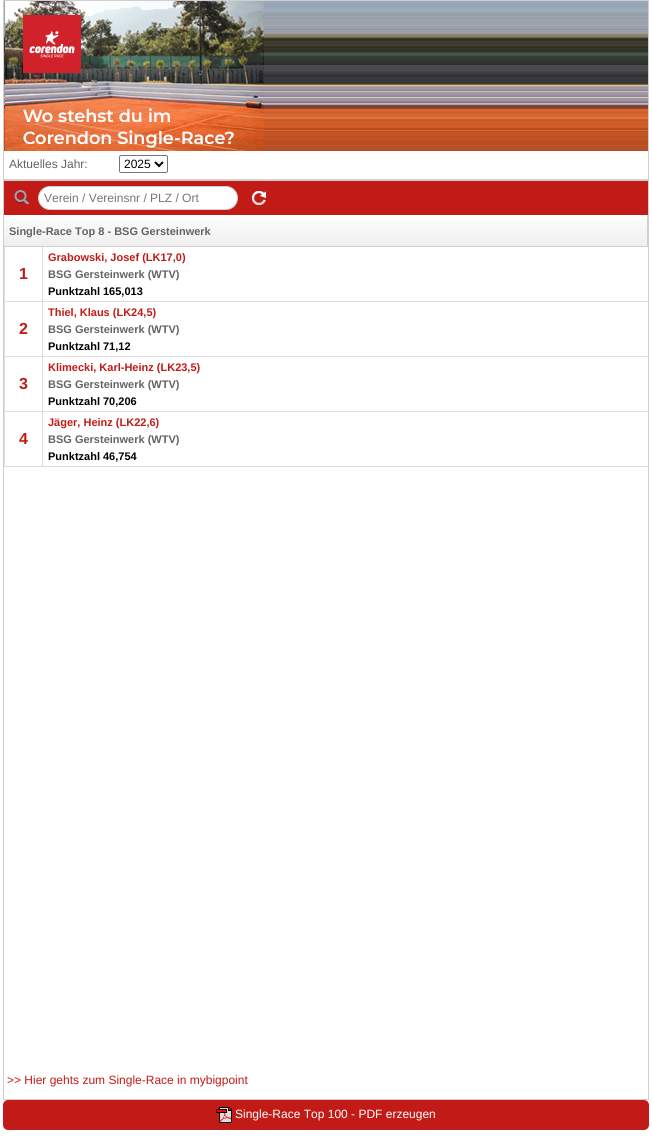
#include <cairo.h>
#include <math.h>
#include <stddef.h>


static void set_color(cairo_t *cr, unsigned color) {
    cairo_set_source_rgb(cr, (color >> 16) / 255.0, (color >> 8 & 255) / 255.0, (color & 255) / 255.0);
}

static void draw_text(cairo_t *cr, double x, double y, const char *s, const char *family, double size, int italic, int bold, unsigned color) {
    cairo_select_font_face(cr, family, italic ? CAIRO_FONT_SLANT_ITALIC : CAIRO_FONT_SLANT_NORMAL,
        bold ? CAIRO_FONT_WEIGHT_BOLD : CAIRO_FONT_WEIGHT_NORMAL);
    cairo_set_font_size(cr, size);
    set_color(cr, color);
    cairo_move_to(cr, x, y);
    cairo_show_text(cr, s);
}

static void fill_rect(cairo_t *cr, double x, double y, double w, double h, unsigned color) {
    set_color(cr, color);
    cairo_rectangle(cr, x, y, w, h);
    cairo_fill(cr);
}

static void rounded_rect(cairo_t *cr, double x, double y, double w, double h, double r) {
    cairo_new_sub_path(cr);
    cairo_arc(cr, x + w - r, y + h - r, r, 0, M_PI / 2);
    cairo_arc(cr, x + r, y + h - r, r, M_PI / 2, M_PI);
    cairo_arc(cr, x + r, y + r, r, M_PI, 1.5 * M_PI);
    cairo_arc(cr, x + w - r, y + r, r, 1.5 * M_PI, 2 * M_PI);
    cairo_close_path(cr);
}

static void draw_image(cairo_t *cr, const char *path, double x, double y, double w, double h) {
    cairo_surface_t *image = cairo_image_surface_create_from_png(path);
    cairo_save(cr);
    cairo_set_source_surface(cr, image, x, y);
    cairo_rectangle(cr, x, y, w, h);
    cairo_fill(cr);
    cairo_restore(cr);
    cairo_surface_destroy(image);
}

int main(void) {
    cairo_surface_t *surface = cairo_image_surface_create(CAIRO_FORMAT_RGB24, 652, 1140);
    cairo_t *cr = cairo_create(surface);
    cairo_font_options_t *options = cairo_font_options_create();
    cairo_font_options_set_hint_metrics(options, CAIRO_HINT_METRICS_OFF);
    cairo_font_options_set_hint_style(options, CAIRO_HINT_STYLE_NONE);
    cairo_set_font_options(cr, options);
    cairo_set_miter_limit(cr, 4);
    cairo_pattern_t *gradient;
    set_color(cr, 0xFFFFFF);
    cairo_paint(cr);
    cairo_rectangle(cr, 3.5, 0.5, 645, 179);
    set_color(cr, 0xCFCFCF);
    cairo_set_line_width(cr, 1);
    cairo_stroke(cr);
    draw_image(cr, "assets/img1.png", 4, 1, 644, 150);
    draw_image(cr, "assets/img2.png", 5, 1, 259, 150);
    draw_text(cr, 9, 168, "Aktuelles Jahr:", "Liberation Sans", 12, 0, 0, 0x636363);
    rounded_rect(cr, 119.5, 155.5, 48, 17, 1.5);
    set_color(cr, 0x767676);
    cairo_stroke(cr);
    cairo_new_path(cr);
    cairo_move_to(cr, 155, 162);
    cairo_line_to(cr, 159, 166);
    cairo_line_to(cr, 163, 162);
    set_color(cr, 0x000000);
    cairo_set_line_width(cr, 2);
    cairo_stroke(cr);
    draw_text(cr, 124, 168, "2025", "Liberation Sans", 12, 0, 0, 0x000000);
    cairo_rectangle(cr, 3.5, 180.5, 645, 919);
    set_color(cr, 0xCFCFCF);
    cairo_set_line_width(cr, 1);
    cairo_stroke(cr);
    fill_rect(cr, 4, 181, 644, 34, 0xC21B17);
    draw_image(cr, "assets/img3.png", 14, 190, 16, 14);
    set_color(cr, 0xFFFFFF);
    rounded_rect(cr, 38.5, 186.5, 199, 23, 11.5);
    cairo_fill_preserve(cr);
    set_color(cr, 0xCFCFCF);
    cairo_stroke(cr);
    draw_text(cr, 44, 202, "Verein / Vereinsnr / PLZ / Ort", "Liberation Sans", 12, 0, 0, 0x757575);
    draw_image(cr, "assets/img4.png", 252, 191, 14, 14);
    gradient = cairo_pattern_create_linear(326, 215, 326, 247);
    cairo_pattern_add_color_stop_rgba(gradient, 0, 0.996, 0.996, 0.996, 1);
    cairo_pattern_add_color_stop_rgba(gradient, 1, 0.933, 0.933, 0.933, 1);
    cairo_set_source(cr, gradient);
    cairo_pattern_destroy(gradient);
    cairo_rectangle(cr, 4, 218, 643, 28);
    cairo_fill(cr);
    fill_rect(cr, 647, 215, 1, 32, 0xCFCFCF);
    fill_rect(cr, 4, 246, 644, 1, 0xCFCFCF);
    draw_text(cr, 9, 235, "Single-Race Top 8 - BSG Gersteinwerk", "Liberation Sans", 11, 0, 1, 0x636363);
    fill_rect(cr, 4, 301, 644, 1, 0xDDDDDD);
    fill_rect(cr, 4, 247, 1, 55, 0xDDDDDD);
    draw_text(cr, 19, 279, "1", "Liberation Sans", 16, 0, 1, 0xC21B17);
    fill_rect(cr, 42, 247, 1, 55, 0xDDDDDD);
    draw_text(cr, 48, 261, "Grabowski, Josef (LK17,0)", "Liberation Sans", 11, 0, 1, 0xC21B17);
    draw_text(cr, 48, 278, "BSG Gersteinwerk (WTV)", "Liberation Sans", 11, 0, 1, 0x636363);
    draw_text(cr, 48, 295, "Punktzahl 165,013", "Liberation Sans", 11, 0, 1, 0x000000);
    fill_rect(cr, 4, 356, 644, 1, 0xDDDDDD);
    fill_rect(cr, 4, 302, 1, 55, 0xDDDDDD);
    draw_text(cr, 19, 334, "2", "Liberation Sans", 16, 0, 1, 0xC21B17);
    fill_rect(cr, 42, 302, 1, 55, 0xDDDDDD);
    draw_text(cr, 48, 316, "Thiel, Klaus (LK24,5)", "Liberation Sans", 11, 0, 1, 0xC21B17);
    draw_text(cr, 48, 333, "BSG Gersteinwerk (WTV)", "Liberation Sans", 11, 0, 1, 0x636363);
    draw_text(cr, 48, 350, "Punktzahl 71,12", "Liberation Sans", 11, 0, 1, 0x000000);
    fill_rect(cr, 4, 411, 644, 1, 0xDDDDDD);
    fill_rect(cr, 4, 357, 1, 55, 0xDDDDDD);
    draw_text(cr, 19, 389, "3", "Liberation Sans", 16, 0, 1, 0xC21B17);
    fill_rect(cr, 42, 357, 1, 55, 0xDDDDDD);
    draw_text(cr, 48, 371, "Klimecki, Karl-Heinz (LK23,5)", "Liberation Sans", 11, 0, 1, 0xC21B17);
    draw_text(cr, 48, 388, "BSG Gersteinwerk (WTV)", "Liberation Sans", 11, 0, 1, 0x636363);
    draw_text(cr, 48, 405, "Punktzahl 70,206", "Liberation Sans", 11, 0, 1, 0x000000);
    fill_rect(cr, 4, 466, 644, 1, 0xDDDDDD);
    fill_rect(cr, 4, 412, 1, 55, 0xDDDDDD);
    draw_text(cr, 19, 444, "4", "Liberation Sans", 16, 0, 1, 0xC21B17);
    fill_rect(cr, 42, 412, 1, 55, 0xDDDDDD);
    draw_text(cr, 48, 426, "Jäger, Heinz (LK22,6)", "Liberation Sans", 11, 0, 1, 0xC21B17);
    draw_text(cr, 48, 443, "BSG Gersteinwerk (WTV)", "Liberation Sans", 11, 0, 1, 0x636363);
    draw_text(cr, 48, 460, "Punktzahl 46,754", "Liberation Sans", 11, 0, 1, 0x000000);
    draw_text(cr, 7, 1084, ">> Hier gehts zum Single-Race in mybigpoint", "Liberation Sans", 12, 0, 0, 0xC21B17);
    rounded_rect(cr, 4, 1101, 644, 28, 4);
    cairo_fill_preserve(cr);
    cairo_set_line_width(cr, 2);
    cairo_stroke(cr);
    draw_image(cr, "assets/img5.png", 216, 1107, 16, 16);
    draw_text(cr, 235, 1118, "Single-Race Top 100 - PDF erzeugen", "Liberation Sans", 12, 0, 0, 0xFFFFFF);
    cairo_surface_write_to_png(surface, "output.png");
    cairo_font_options_destroy(options);
    cairo_destroy(cr);
    cairo_surface_destroy(surface);
    return 0;
}
